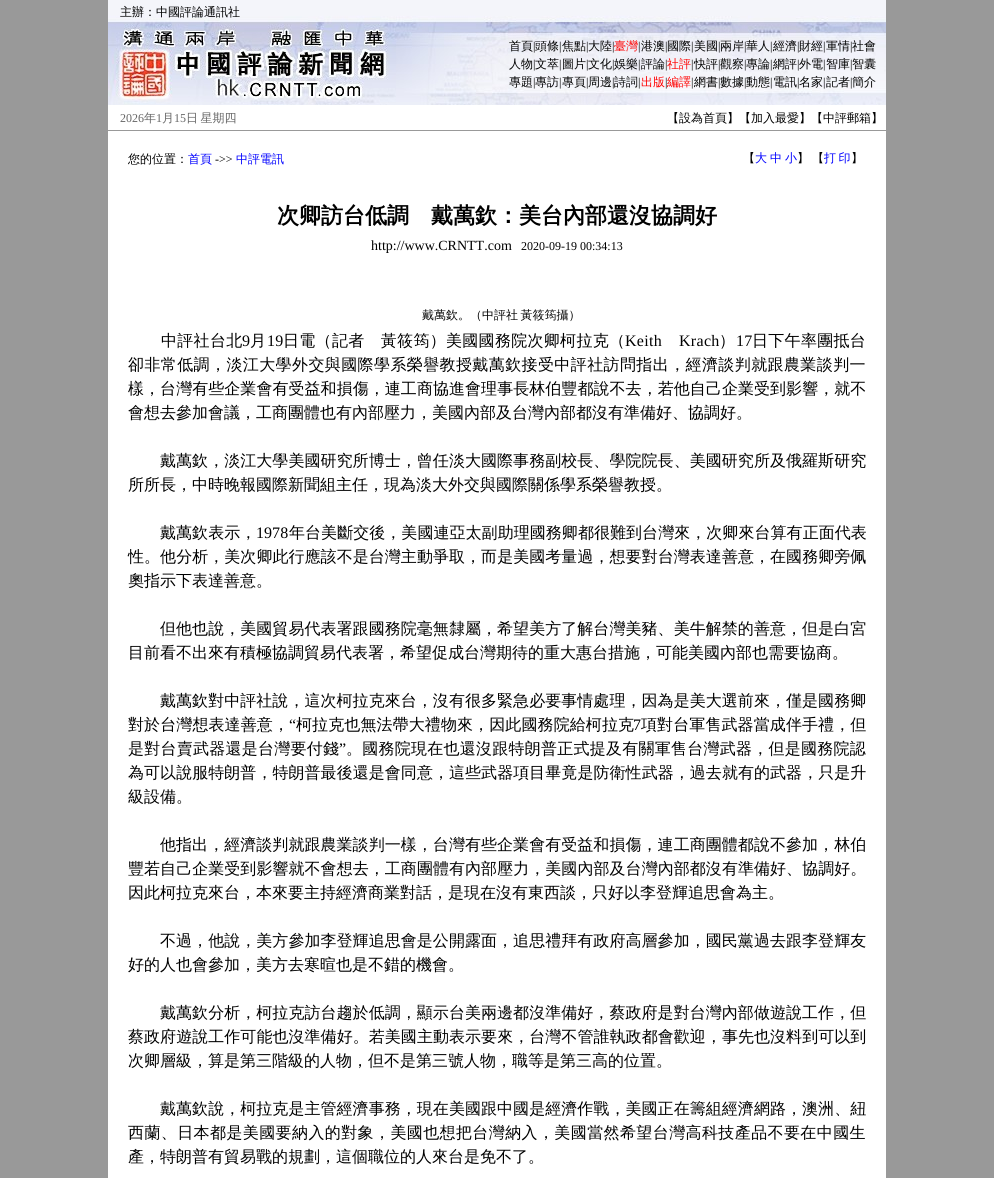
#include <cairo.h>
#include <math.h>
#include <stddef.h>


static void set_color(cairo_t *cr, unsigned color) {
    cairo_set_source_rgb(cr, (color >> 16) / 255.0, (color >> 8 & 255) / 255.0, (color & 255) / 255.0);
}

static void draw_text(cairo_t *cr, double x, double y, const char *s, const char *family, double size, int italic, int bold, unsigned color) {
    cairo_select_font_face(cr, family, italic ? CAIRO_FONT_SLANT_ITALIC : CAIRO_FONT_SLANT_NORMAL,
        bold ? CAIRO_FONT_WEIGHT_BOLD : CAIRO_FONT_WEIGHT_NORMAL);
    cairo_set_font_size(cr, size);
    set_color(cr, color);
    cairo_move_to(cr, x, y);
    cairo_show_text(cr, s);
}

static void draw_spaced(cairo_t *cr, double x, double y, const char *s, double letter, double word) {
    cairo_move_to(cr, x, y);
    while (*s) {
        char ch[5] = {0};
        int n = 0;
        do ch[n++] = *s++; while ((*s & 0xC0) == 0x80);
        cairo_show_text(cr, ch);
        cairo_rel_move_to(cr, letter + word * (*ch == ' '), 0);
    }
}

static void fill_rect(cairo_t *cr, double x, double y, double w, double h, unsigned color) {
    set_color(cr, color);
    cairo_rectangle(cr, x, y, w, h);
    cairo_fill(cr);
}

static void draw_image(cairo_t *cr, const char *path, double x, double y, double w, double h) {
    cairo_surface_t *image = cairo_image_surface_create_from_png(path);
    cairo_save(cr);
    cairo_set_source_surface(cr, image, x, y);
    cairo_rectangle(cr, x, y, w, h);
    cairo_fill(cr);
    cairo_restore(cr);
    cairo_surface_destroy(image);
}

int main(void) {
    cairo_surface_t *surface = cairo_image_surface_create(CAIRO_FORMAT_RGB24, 994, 1178);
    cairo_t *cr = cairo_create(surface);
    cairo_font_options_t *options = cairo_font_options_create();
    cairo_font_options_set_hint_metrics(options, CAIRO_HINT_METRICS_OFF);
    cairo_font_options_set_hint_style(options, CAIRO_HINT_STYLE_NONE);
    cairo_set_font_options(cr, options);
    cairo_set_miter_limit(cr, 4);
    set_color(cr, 0x999999);
    cairo_paint(cr);
    draw_image(cr, "assets/img1.png", 108, 0, 778, 105);
    draw_text(cr, 120, 16, "主辦：中國評論通訊社", "WenQuanYi Zen Hei Medium", 12, 0, 0, 0x000000);
    draw_text(cr, 509, 50, "首頁", "WenQuanYi Zen Hei Medium", 12, 0, 0, 0x000000);
    draw_text(cr, 533, 50, "|", "Liberation Serif", 12, 0, 0, 0x000000);
    draw_text(cr, 535, 50, "頭條", "WenQuanYi Zen Hei Medium", 12, 0, 0, 0x000000);
    draw_text(cr, 559, 50, "|", "Liberation Serif", 12, 0, 0, 0x000000);
    draw_text(cr, 562, 50, "焦點", "WenQuanYi Zen Hei Medium", 12, 0, 0, 0x000000);
    draw_text(cr, 586, 50, "|", "Liberation Serif", 12, 0, 0, 0x000000);
    draw_text(cr, 588, 50, "大陸", "WenQuanYi Zen Hei Medium", 12, 0, 0, 0x000000);
    draw_text(cr, 612, 50, "|", "Liberation Serif", 12, 0, 0, 0x000000);
    draw_text(cr, 614, 50, "臺灣", "WenQuanYi Zen Hei Medium", 12, 0, 0, 0xFF0000);
    draw_text(cr, 638, 50, "|", "Liberation Serif", 12, 0, 0, 0x000000);
    draw_text(cr, 641, 50, "港澳", "WenQuanYi Zen Hei Medium", 12, 0, 0, 0x000000);
    draw_text(cr, 665, 50, "|", "Liberation Serif", 12, 0, 0, 0x000000);
    draw_text(cr, 667, 50, "國際", "WenQuanYi Zen Hei Medium", 12, 0, 0, 0x000000);
    draw_text(cr, 691, 50, "|", "Liberation Serif", 12, 0, 0, 0x000000);
    draw_text(cr, 694, 50, "美國", "WenQuanYi Zen Hei Medium", 12, 0, 0, 0x000000);
    draw_text(cr, 718, 50, "|", "Liberation Serif", 12, 0, 0, 0x000000);
    draw_text(cr, 720, 50, "兩岸", "WenQuanYi Zen Hei Medium", 12, 0, 0, 0x000000);
    draw_text(cr, 744, 50, "|", "Liberation Serif", 12, 0, 0, 0x000000);
    draw_text(cr, 746, 50, "華人", "WenQuanYi Zen Hei Medium", 12, 0, 0, 0x000000);
    draw_text(cr, 770, 50, "|", "Liberation Serif", 12, 0, 0, 0x000000);
    draw_text(cr, 773, 50, "經濟", "WenQuanYi Zen Hei Medium", 12, 0, 0, 0x000000);
    draw_text(cr, 797, 50, "|", "Liberation Serif", 12, 0, 0, 0x000000);
    draw_text(cr, 799, 50, "財經", "WenQuanYi Zen Hei Medium", 12, 0, 0, 0x000000);
    draw_text(cr, 823, 50, "|", "Liberation Serif", 12, 0, 0, 0x000000);
    draw_text(cr, 826, 50, "軍情", "WenQuanYi Zen Hei Medium", 12, 0, 0, 0x000000);
    draw_text(cr, 850, 50, "|", "Liberation Serif", 12, 0, 0, 0x000000);
    draw_text(cr, 852, 50, "社會", "WenQuanYi Zen Hei Medium", 12, 0, 0, 0x000000);
    draw_text(cr, 509, 68, "人物", "WenQuanYi Zen Hei Medium", 12, 0, 0, 0x000000);
    draw_text(cr, 533, 68, "|", "Liberation Serif", 12, 0, 0, 0x000000);
    draw_text(cr, 535, 68, "文萃", "WenQuanYi Zen Hei Medium", 12, 0, 0, 0x000000);
    draw_text(cr, 559, 68, "|", "Liberation Serif", 12, 0, 0, 0x000000);
    draw_text(cr, 562, 68, "圖片", "WenQuanYi Zen Hei Medium", 12, 0, 0, 0x000000);
    draw_text(cr, 586, 68, "|", "Liberation Serif", 12, 0, 0, 0x000000);
    draw_text(cr, 588, 68, "文化", "WenQuanYi Zen Hei Medium", 12, 0, 0, 0x000000);
    draw_text(cr, 612, 68, "|", "Liberation Serif", 12, 0, 0, 0x000000);
    draw_text(cr, 614, 68, "娛樂", "WenQuanYi Zen Hei Medium", 12, 0, 0, 0x000000);
    draw_text(cr, 638, 68, "|", "Liberation Serif", 12, 0, 0, 0x000000);
    draw_text(cr, 641, 68, "評論", "WenQuanYi Zen Hei Medium", 12, 0, 0, 0x000000);
    draw_text(cr, 665, 68, "|", "Liberation Serif", 12, 0, 0, 0x000000);
    draw_text(cr, 667, 68, "社評", "WenQuanYi Zen Hei Medium", 12, 0, 0, 0xFF0000);
    draw_text(cr, 691, 68, "|", "Liberation Serif", 12, 0, 0, 0x000000);
    draw_text(cr, 694, 68, "快評", "WenQuanYi Zen Hei Medium", 12, 0, 0, 0x000000);
    draw_text(cr, 718, 68, "|", "Liberation Serif", 12, 0, 0, 0x000000);
    draw_text(cr, 720, 68, "觀察", "WenQuanYi Zen Hei Medium", 12, 0, 0, 0x000000);
    draw_text(cr, 744, 68, "|", "Liberation Serif", 12, 0, 0, 0x000000);
    draw_text(cr, 746, 68, "專論", "WenQuanYi Zen Hei Medium", 12, 0, 0, 0x000000);
    draw_text(cr, 770, 68, "|", "Liberation Serif", 12, 0, 0, 0x000000);
    draw_text(cr, 773, 68, "網評", "WenQuanYi Zen Hei Medium", 12, 0, 0, 0x000000);
    draw_text(cr, 797, 68, "|", "Liberation Serif", 12, 0, 0, 0x000000);
    draw_text(cr, 799, 68, "外電", "WenQuanYi Zen Hei Medium", 12, 0, 0, 0x000000);
    draw_text(cr, 823, 68, "|", "Liberation Serif", 12, 0, 0, 0x000000);
    draw_text(cr, 826, 68, "智庫", "WenQuanYi Zen Hei Medium", 12, 0, 0, 0x000000);
    draw_text(cr, 850, 68, "|", "Liberation Serif", 12, 0, 0, 0x000000);
    draw_text(cr, 852, 68, "智囊", "WenQuanYi Zen Hei Medium", 12, 0, 0, 0x000000);
    draw_text(cr, 509, 86, "專題", "WenQuanYi Zen Hei Medium", 12, 0, 0, 0x000000);
    draw_text(cr, 533, 86, "|", "Liberation Serif", 12, 0, 0, 0x000000);
    draw_text(cr, 535, 86, "專訪", "WenQuanYi Zen Hei Medium", 12, 0, 0, 0x000000);
    draw_text(cr, 559, 86, "|", "Liberation Serif", 12, 0, 0, 0x000000);
    draw_text(cr, 562, 86, "專頁", "WenQuanYi Zen Hei Medium", 12, 0, 0, 0x000000);
    draw_text(cr, 586, 86, "|", "Liberation Serif", 12, 0, 0, 0x000000);
    draw_text(cr, 588, 86, "周邊", "WenQuanYi Zen Hei Medium", 12, 0, 0, 0x000000);
    draw_text(cr, 612, 86, "|", "Liberation Serif", 12, 0, 0, 0x000000);
    draw_text(cr, 614, 86, "詩詞", "WenQuanYi Zen Hei Medium", 12, 0, 0, 0x000000);
    draw_text(cr, 638, 86, "|", "Liberation Serif", 12, 0, 0, 0x000000);
    draw_text(cr, 641, 86, "出版", "WenQuanYi Zen Hei Medium", 12, 0, 0, 0xFF0000);
    draw_text(cr, 665, 86, "|", "Liberation Serif", 12, 0, 0, 0x000000);
    draw_text(cr, 667, 86, "編譯", "WenQuanYi Zen Hei Medium", 12, 0, 0, 0xFF0000);
    draw_text(cr, 691, 86, "|", "Liberation Serif", 12, 0, 0, 0x000000);
    draw_text(cr, 694, 86, "網書", "WenQuanYi Zen Hei Medium", 12, 0, 0, 0x000000);
    draw_text(cr, 718, 86, "|", "Liberation Serif", 12, 0, 0, 0x000000);
    draw_text(cr, 720, 86, "數據", "WenQuanYi Zen Hei Medium", 12, 0, 0, 0x000000);
    draw_text(cr, 744, 86, "|", "Liberation Serif", 12, 0, 0, 0x000000);
    draw_text(cr, 746, 86, "動態", "WenQuanYi Zen Hei Medium", 12, 0, 0, 0x000000);
    draw_text(cr, 770, 86, "|", "Liberation Serif", 12, 0, 0, 0x000000);
    draw_text(cr, 773, 86, "電訊", "WenQuanYi Zen Hei Medium", 12, 0, 0, 0x000000);
    draw_text(cr, 797, 86, "|", "Liberation Serif", 12, 0, 0, 0x000000);
    draw_text(cr, 799, 86, "名家", "WenQuanYi Zen Hei Medium", 12, 0, 0, 0x000000);
    draw_text(cr, 823, 86, "|", "Liberation Serif", 12, 0, 0, 0x000000);
    draw_text(cr, 826, 86, "記者", "WenQuanYi Zen Hei Medium", 12, 0, 0, 0x000000);
    draw_text(cr, 850, 86, "|", "Liberation Serif", 12, 0, 0, 0x000000);
    draw_text(cr, 852, 86, "簡介", "WenQuanYi Zen Hei Medium", 12, 0, 0, 0x000000);
    fill_rect(cr, 108, 105, 778, 25, 0xFFFFFF);
    draw_text(cr, 120, 122, "2026", "Liberation Serif", 12, 0, 0, 0x666666);
    draw_text(cr, 144, 122, "年", "WenQuanYi Zen Hei Medium", 12, 0, 0, 0x666666);
    draw_text(cr, 156, 122, "1", "Liberation Serif", 12, 0, 0, 0x666666);
    draw_text(cr, 162, 122, "月", "WenQuanYi Zen Hei Medium", 12, 0, 0, 0x666666);
    draw_text(cr, 174, 122, "15", "Liberation Serif", 12, 0, 0, 0x666666);
    cairo_select_font_face(cr, "WenQuanYi Zen Hei Medium", CAIRO_FONT_SLANT_NORMAL, CAIRO_FONT_WEIGHT_NORMAL);
    draw_spaced(cr, 186, 122, "日 星期四", 0, -1);
    draw_text(cr, 667, 122, "【設為首頁】【加入最愛】【中評郵箱】", "WenQuanYi Zen Hei Medium", 12, 0, 0, 0x000000);
    fill_rect(cr, 108, 131, 778, 1047, 0xFFFFFF);
    draw_text(cr, 128, 163, "您的位置：", "WenQuanYi Zen Hei Medium", 12, 0, 0, 0x000000);
    draw_text(cr, 188, 163, "首頁", "WenQuanYi Zen Hei Medium", 12, 0, 0, 0x0000FF);
    draw_text(cr, 215, 163, "->>", "Liberation Serif", 12, 0, 0, 0x000000);
    draw_text(cr, 236, 163, "中評電訊", "WenQuanYi Zen Hei Medium", 12, 0, 0, 0x0000FF);
    draw_text(cr, 743, 162, "【", "WenQuanYi Zen Hei Medium", 12, 0, 0, 0x000000);
    draw_text(cr, 755, 162, "大", "WenQuanYi Zen Hei Medium", 12, 0, 0, 0x0000FF);
    draw_text(cr, 770, 162, "中", "WenQuanYi Zen Hei Medium", 12, 0, 0, 0x0000FF);
    draw_text(cr, 785, 162, "小", "WenQuanYi Zen Hei Medium", 12, 0, 0, 0x0000FF);
    draw_text(cr, 797, 162, "】", "WenQuanYi Zen Hei Medium", 12, 0, 0, 0x000000);
    draw_text(cr, 812, 162, "【", "WenQuanYi Zen Hei Medium", 12, 0, 0, 0x000000);
    set_color(cr, 0x0000FF);
    draw_spaced(cr, 824, 162, "打 印", 0, -1);
    draw_text(cr, 851, 162, "】", "WenQuanYi Zen Hei Medium", 12, 0, 0, 0x000000);
    draw_text(cr, 277, 223, "次卿訪台低調　戴萬欽：美台內部還沒協調好", "WenQuanYi Zen Hei", 22, 0, 1, 0x000000);
    draw_text(cr, 371, 250, "http://www.CRNTT.com", "Liberation Serif", 14, 0, 0, 0x000000);
    draw_text(cr, 521, 250, "2020-09-19 00:34:13", "Liberation Serif", 12, 0, 0, 0x000000);
    cairo_select_font_face(cr, "WenQuanYi Zen Hei Medium", CAIRO_FONT_SLANT_NORMAL, CAIRO_FONT_WEIGHT_NORMAL);
    draw_spaced(cr, 422, 319, "戴萬欽。（中評社 黃筱筠攝）", 0, -1);
    cairo_set_font_size(cr, 16);
    draw_spaced(cr, 161, 346, "中評社台北", 0.3, 0);
    cairo_select_font_face(cr, "Liberation Serif", CAIRO_FONT_SLANT_NORMAL, CAIRO_FONT_WEIGHT_NORMAL);
    draw_spaced(cr, 242, 346, "9", 0.3, 0);
    cairo_select_font_face(cr, "WenQuanYi Zen Hei Medium", CAIRO_FONT_SLANT_NORMAL, CAIRO_FONT_WEIGHT_NORMAL);
    draw_spaced(cr, 250, 346, "月", 0.3, 0);
    cairo_select_font_face(cr, "Liberation Serif", CAIRO_FONT_SLANT_NORMAL, CAIRO_FONT_WEIGHT_NORMAL);
    draw_spaced(cr, 267, 346, "19", 0.3, 0);
    cairo_select_font_face(cr, "WenQuanYi Zen Hei Medium", CAIRO_FONT_SLANT_NORMAL, CAIRO_FONT_WEIGHT_NORMAL);
    draw_spaced(cr, 283, 346, "日電（記者　黃筱筠）美國國務院次卿柯拉克（", 0.3, 0);
    cairo_select_font_face(cr, "Liberation Serif", CAIRO_FONT_SLANT_NORMAL, CAIRO_FONT_WEIGHT_NORMAL);
    draw_spaced(cr, 625, 346, "Keith", 0.3, 0);
    draw_spaced(cr, 679, 346, "Krach", 0.3, 0);
    cairo_select_font_face(cr, "WenQuanYi Zen Hei Medium", CAIRO_FONT_SLANT_NORMAL, CAIRO_FONT_WEIGHT_NORMAL);
    draw_spaced(cr, 719, 346, "）", 0.3, 0);
    cairo_select_font_face(cr, "Liberation Serif", CAIRO_FONT_SLANT_NORMAL, CAIRO_FONT_WEIGHT_NORMAL);
    draw_spaced(cr, 736, 346, "17", 0.3, 0);
    cairo_select_font_face(cr, "WenQuanYi Zen Hei Medium", CAIRO_FONT_SLANT_NORMAL, CAIRO_FONT_WEIGHT_NORMAL);
    draw_spaced(cr, 752, 346, "日下午率團抵台", 0.3, 0);
    draw_spaced(cr, 128, 370, "卻非常低調，淡江大學外交與國際學系榮譽教授戴萬欽接受中評社訪問指出，經濟談判就跟農業談判一", 0.4, 0);
    draw_spaced(cr, 128, 394, "樣，台灣有些企業會有受益和損傷，連工商協進會理事長林伯豐都說不去，若他自己企業受到影響，就不", 0.05, 0);
    draw_text(cr, 128, 418, "會想去參加會議，工商團體也有內部壓力，美國內部及台灣內部都沒有準備好、協調好。", "WenQuanYi Zen Hei Medium", 16, 0, 0, 0x000000);
    draw_spaced(cr, 160, 466, "戴萬欽，淡江大學美國研究所博士，曾任淡大國際事務副校長、學院院長、美國研究所及俄羅斯研究", 0.05, 0);
    draw_text(cr, 128, 490, "所所長，中時晚報國際新聞組主任，現為淡大外交與國際關係學系榮譽教授。", "WenQuanYi Zen Hei Medium", 16, 0, 0, 0x000000);
    draw_spaced(cr, 160, 538, "戴萬欽表示，", 0.05, 0);
    cairo_select_font_face(cr, "Liberation Serif", CAIRO_FONT_SLANT_NORMAL, CAIRO_FONT_WEIGHT_NORMAL);
    draw_spaced(cr, 256, 538, "1978", 0.05, 0);
    cairo_select_font_face(cr, "WenQuanYi Zen Hei Medium", CAIRO_FONT_SLANT_NORMAL, CAIRO_FONT_WEIGHT_NORMAL);
    draw_spaced(cr, 289, 538, "年台美斷交後，美國連亞太副助理國務卿都很難到台灣來，次卿來台算有正面代表", 0.05, 0);
    draw_spaced(cr, 128, 562, "性。他分析，美次卿此行應該不是台灣主動爭取，而是美國考量過，想要對台灣表達善意，在國務卿旁佩", 0.05, 0);
    draw_text(cr, 128, 586, "奧指示下表達善意。", "WenQuanYi Zen Hei Medium", 16, 0, 0, 0x000000);
    draw_spaced(cr, 160, 634, "但他也說，美國貿易代表署跟國務院毫無隸屬，希望美方了解台灣美豬、美牛解禁的善意，但是白宮", 0.05, 0);
    draw_text(cr, 128, 658, "目前看不出來有積極協調貿易代表署，希望促成台灣期待的重大惠台措施，可能美國內部也需要協商。", "WenQuanYi Zen Hei Medium", 16, 0, 0, 0x000000);
    draw_spaced(cr, 160, 706, "戴萬欽對中評社說，這次柯拉克來台，沒有很多緊急必要事情處理，因為是美大選前來，僅是國務卿", 0.05, 0);
    draw_spaced(cr, 128, 730, "對於台灣想表達善意，", 0.1, 0);
    cairo_select_font_face(cr, "Liberation Serif", CAIRO_FONT_SLANT_NORMAL, CAIRO_FONT_WEIGHT_NORMAL);
    draw_spaced(cr, 289, 730, "“", 0.1, 0);
    cairo_select_font_face(cr, "WenQuanYi Zen Hei Medium", CAIRO_FONT_SLANT_NORMAL, CAIRO_FONT_WEIGHT_NORMAL);
    draw_spaced(cr, 296, 730, "柯拉克也無法帶大禮物來，因此國務院給柯拉克", 0.1, 0);
    cairo_select_font_face(cr, "Liberation Serif", CAIRO_FONT_SLANT_NORMAL, CAIRO_FONT_WEIGHT_NORMAL);
    draw_spaced(cr, 633, 730, "7", 0.1, 0);
    cairo_select_font_face(cr, "WenQuanYi Zen Hei Medium", CAIRO_FONT_SLANT_NORMAL, CAIRO_FONT_WEIGHT_NORMAL);
    draw_spaced(cr, 641, 730, "項對台軍售武器當成伴手禮，但", 0.1, 0);
    draw_spaced(cr, 128, 754, "是對台賣武器還是台灣要付錢", 0.25, 0);
    cairo_select_font_face(cr, "Liberation Serif", CAIRO_FONT_SLANT_NORMAL, CAIRO_FONT_WEIGHT_NORMAL);
    draw_spaced(cr, 339, 754, "”", 0.25, 0);
    cairo_select_font_face(cr, "WenQuanYi Zen Hei Medium", CAIRO_FONT_SLANT_NORMAL, CAIRO_FONT_WEIGHT_NORMAL);
    draw_spaced(cr, 346, 754, "。國務院現在也還沒跟特朗普正式提及有關軍售台灣武器，但是國務院認", 0.25, 0);
    draw_spaced(cr, 128, 778, "為可以說服特朗普，特朗普最後還是會同意，這些武器項目畢竟是防衛性武器，過去就有的武器，只是升", 0.05, 0);
    draw_text(cr, 128, 802, "級設備。", "WenQuanYi Zen Hei Medium", 16, 0, 0, 0x000000);
    draw_spaced(cr, 160, 850, "他指出，經濟談判就跟農業談判一樣，台灣有些企業會有受益和損傷，連工商團體都說不參加，林伯", 0.05, 0);
    draw_spaced(cr, 128, 874, "豐若自己企業受到影響就不會想去，工商團體有內部壓力，美國內部及台灣內部都沒有準備好、協調好。", 0.05, 0);
    draw_text(cr, 128, 898, "因此柯拉克來台，本來要主持經濟商業對話，是現在沒有東西談，只好以李登輝追思會為主。", "WenQuanYi Zen Hei Medium", 16, 0, 0, 0x000000);
    draw_spaced(cr, 160, 946, "不過，他說，美方參加李登輝追思會是公開露面，追思禮拜有政府高層參加，國民黨過去跟李登輝友", 0.05, 0);
    draw_text(cr, 128, 970, "好的人也會參加，美方去寒暄也是不錯的機會。", "WenQuanYi Zen Hei Medium", 16, 0, 0, 0x000000);
    draw_spaced(cr, 160, 1018, "戴萬欽分析，柯拉克訪台趨於低調，顯示台美兩邊都沒準備好，蔡政府是對台灣內部做遊說工作，但", 0.05, 0);
    draw_spaced(cr, 128, 1042, "蔡政府遊說工作可能也沒準備好。若美國主動表示要來，台灣不管誰執政都會歡迎，事先也沒料到可以到", 0.05, 0);
    draw_text(cr, 128, 1066, "次卿層級，算是第三階級的人物，但不是第三號人物，職等是第三高的位置。", "WenQuanYi Zen Hei Medium", 16, 0, 0, 0x000000);
    draw_spaced(cr, 160, 1114, "戴萬欽說，柯拉克是主管經濟事務，現在美國跟中國是經濟作戰，美國正在籌組經濟網路，澳洲、紐", 0.05, 0);
    draw_spaced(cr, 128, 1138, "西蘭、日本都是美國要納入的對象，美國也想把台灣納入，美國當然希望台灣高科技產品不要在中國生", 0.4, 0);
    draw_text(cr, 128, 1162, "產，特朗普有貿易戰的規劃，這個職位的人來台是免不了。", "WenQuanYi Zen Hei Medium", 16, 0, 0, 0x000000);
    cairo_surface_write_to_png(surface, "output.png");
    cairo_font_options_destroy(options);
    cairo_destroy(cr);
    cairo_surface_destroy(surface);
    return 0;
}
